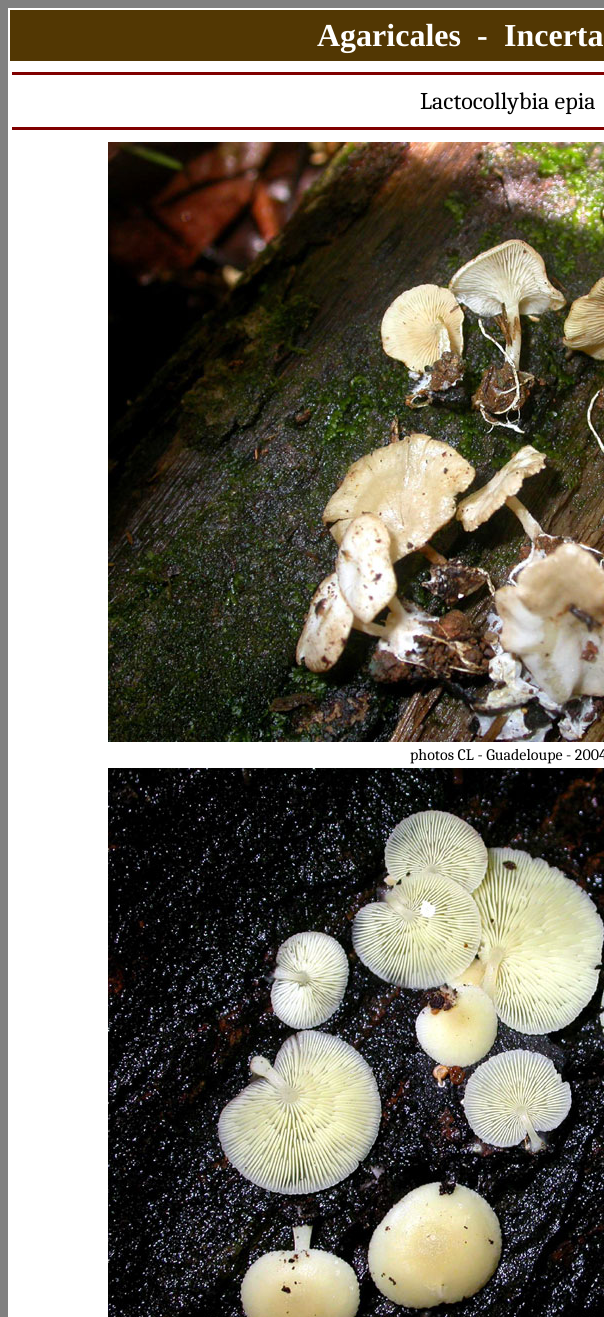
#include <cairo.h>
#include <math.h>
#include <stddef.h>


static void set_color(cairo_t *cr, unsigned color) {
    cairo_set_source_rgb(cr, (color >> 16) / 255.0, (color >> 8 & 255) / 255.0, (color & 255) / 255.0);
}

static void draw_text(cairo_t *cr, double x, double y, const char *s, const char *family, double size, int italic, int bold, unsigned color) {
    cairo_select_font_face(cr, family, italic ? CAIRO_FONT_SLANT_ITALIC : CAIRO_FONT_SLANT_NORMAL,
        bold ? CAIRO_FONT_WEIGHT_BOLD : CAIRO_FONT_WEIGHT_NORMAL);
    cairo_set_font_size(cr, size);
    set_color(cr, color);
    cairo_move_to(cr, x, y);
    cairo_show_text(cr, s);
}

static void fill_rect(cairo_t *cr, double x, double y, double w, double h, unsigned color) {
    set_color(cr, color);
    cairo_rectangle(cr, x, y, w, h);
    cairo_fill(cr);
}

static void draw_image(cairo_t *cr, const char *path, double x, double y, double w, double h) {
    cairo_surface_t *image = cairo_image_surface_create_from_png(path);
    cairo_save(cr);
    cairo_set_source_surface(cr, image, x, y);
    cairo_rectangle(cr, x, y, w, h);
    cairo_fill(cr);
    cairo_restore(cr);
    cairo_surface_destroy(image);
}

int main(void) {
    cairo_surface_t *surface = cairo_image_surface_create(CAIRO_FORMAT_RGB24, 604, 1317);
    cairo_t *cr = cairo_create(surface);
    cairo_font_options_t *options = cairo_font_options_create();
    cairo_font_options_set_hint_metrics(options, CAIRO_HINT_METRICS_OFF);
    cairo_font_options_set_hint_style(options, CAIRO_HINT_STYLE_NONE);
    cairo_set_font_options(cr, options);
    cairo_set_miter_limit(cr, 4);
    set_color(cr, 0x808080);
    cairo_paint(cr);
    fill_rect(cr, 8, 8, 596, 1309, 0xFFFFFF);
    fill_rect(cr, 10, 10, 594, 51, 0x523703);
    draw_text(cr, 317, 46, "Agaricales  -", "Liberation Serif", 32, 0, 1, 0xFFFFFF);
    draw_text(cr, 504, 46, "Incerta", "Liberation Serif", 32, 0, 1, 0xFFFFFF);
    fill_rect(cr, 12, 72, 592, 3, 0x800000);
    draw_text(cr, 420, 109, "Lactocollybia epia", "Caladea", 24, 0, 0, 0x000000);
    fill_rect(cr, 12, 127, 592, 3, 0x800000);
    draw_image(cr, "assets/img1.png", 108, 142, 496, 600);
    draw_text(cr, 410, 760, "photos CL - Guadeloupe - 2004", "Caladea", 16, 0, 0, 0x000000);
    draw_image(cr, "assets/img2.png", 108, 768, 496, 549);
    cairo_surface_write_to_png(surface, "output.png");
    cairo_font_options_destroy(options);
    cairo_destroy(cr);
    cairo_surface_destroy(surface);
    return 0;
}
